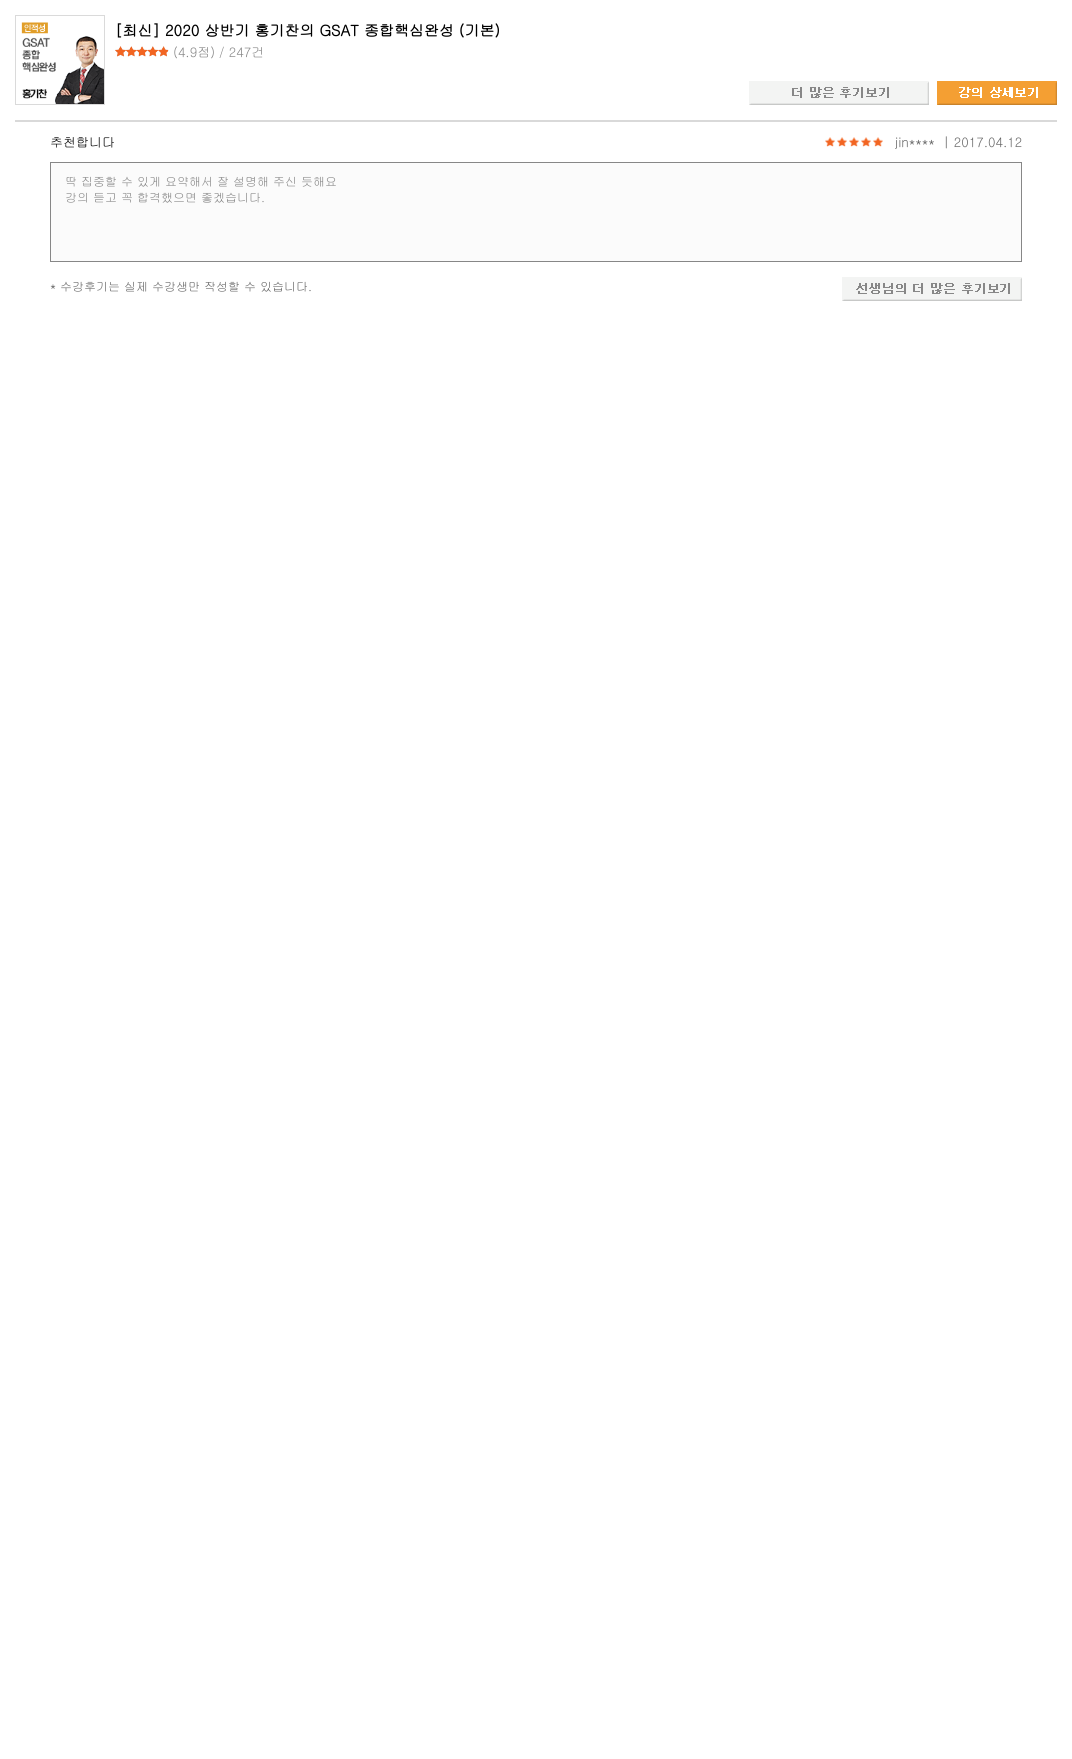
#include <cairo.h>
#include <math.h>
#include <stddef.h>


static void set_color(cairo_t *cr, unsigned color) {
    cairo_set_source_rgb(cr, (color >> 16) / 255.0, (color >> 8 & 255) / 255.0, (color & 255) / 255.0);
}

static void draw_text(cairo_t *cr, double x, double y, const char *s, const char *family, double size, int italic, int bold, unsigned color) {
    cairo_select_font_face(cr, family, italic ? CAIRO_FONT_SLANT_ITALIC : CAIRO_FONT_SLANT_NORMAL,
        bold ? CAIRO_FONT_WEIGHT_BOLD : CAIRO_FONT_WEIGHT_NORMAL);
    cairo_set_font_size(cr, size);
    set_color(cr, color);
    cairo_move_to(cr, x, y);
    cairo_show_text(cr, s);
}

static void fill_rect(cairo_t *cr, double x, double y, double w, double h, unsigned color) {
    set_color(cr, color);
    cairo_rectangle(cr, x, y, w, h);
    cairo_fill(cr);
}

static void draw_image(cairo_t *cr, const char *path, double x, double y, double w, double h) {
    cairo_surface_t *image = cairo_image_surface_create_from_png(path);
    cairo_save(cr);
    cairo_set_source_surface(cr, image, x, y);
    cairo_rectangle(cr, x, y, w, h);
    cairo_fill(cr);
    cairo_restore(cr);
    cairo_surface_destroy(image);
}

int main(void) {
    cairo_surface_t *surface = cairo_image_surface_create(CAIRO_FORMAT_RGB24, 1072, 1759);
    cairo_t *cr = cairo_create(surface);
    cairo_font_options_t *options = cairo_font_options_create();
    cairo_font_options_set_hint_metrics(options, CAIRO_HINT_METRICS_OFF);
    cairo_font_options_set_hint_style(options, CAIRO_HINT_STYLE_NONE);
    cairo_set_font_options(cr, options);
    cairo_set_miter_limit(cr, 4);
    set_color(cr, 0xFFFFFF);
    cairo_paint(cr);
    cairo_rectangle(cr, 15.5, 15.5, 89, 89);
    set_color(cr, 0xDADADA);
    cairo_set_line_width(cr, 1);
    cairo_stroke(cr);
    draw_image(cr, "assets/img1.png", 21, 22, 83, 82);
    draw_text(cr, 115, 36, "[최신] 2020 상반기 홍기찬의 GSAT 종합핵심완성 (기본)", "Gulim", 15, 0, 1, 0x000000);
    draw_image(cr, "assets/img2.png", 115, 46, 54, 11);
    draw_image(cr, "assets/img3.png", 115, 46, 53, 11);
    draw_text(cr, 173, 57, "(4.9점)", "Gulim", 13, 0, 0, 0x878787);
    draw_text(cr, 219, 57, "/ 247건", "Gulim", 13, 0, 0, 0x878787);
    draw_image(cr, "assets/img4.png", 749, 81, 180, 24);
    draw_image(cr, "assets/img5.png", 937, 81, 120, 24);
    fill_rect(cr, 15, 120, 1042, 2, 0xD9D9D9);
    draw_text(cr, 50, 147, "추천합니다", "Gulim", 13, 0, 0, 0x000000);
    draw_image(cr, "assets/img6.png", 825, 137, 10, 10);
    draw_image(cr, "assets/img7.png", 837, 137, 10, 10);
    draw_image(cr, "assets/img7.png", 849, 137, 10, 10);
    draw_image(cr, "assets/img6.png", 861, 137, 10, 10);
    draw_image(cr, "assets/img7.png", 873, 137, 10, 10);
    draw_text(cr, 895, 147, "jin****", "Gulim", 13, 0, 0, 0x666666);
    draw_text(cr, 943, 147, "| 2017.04.12", "Gulim", 13, 0, 0, 0x666666);
    set_color(cr, 0xFBFBFB);
    cairo_rectangle(cr, 50.5, 162.5, 971, 99);
    cairo_fill_preserve(cr);
    set_color(cr, 0x878787);
    cairo_stroke(cr);
    draw_text(cr, 65, 186, "딱 집중할 수 있게 요약해서 잘 설명해 주신 듯해요", "Gulim", 12, 0, 0, 0x878787);
    draw_text(cr, 65, 202, "강의 듣고 꼭 합격했으면 좋겠습니다.", "Gulim", 12, 0, 0, 0x878787);
    draw_text(cr, 50, 291, "* 수강후기는 실제 수강생만 작성할 수 있습니다.", "Gulim", 12, 0, 0, 0x666666);
    draw_image(cr, "assets/img8.png", 842, 277, 180, 24);
    cairo_surface_write_to_png(surface, "output.png");
    cairo_font_options_destroy(options);
    cairo_destroy(cr);
    cairo_surface_destroy(surface);
    return 0;
}
